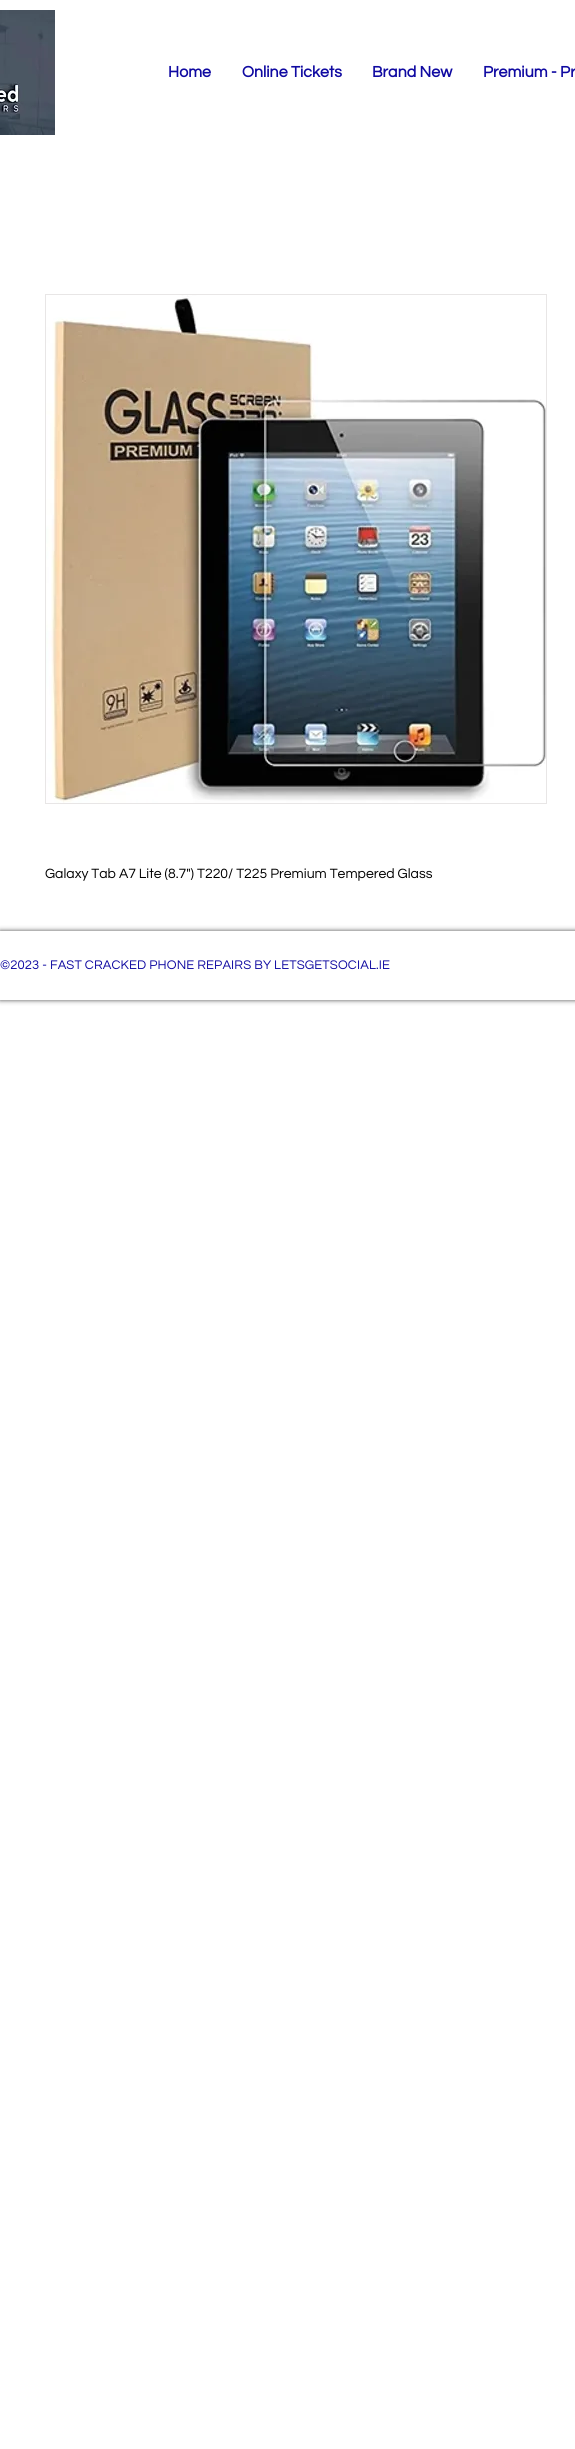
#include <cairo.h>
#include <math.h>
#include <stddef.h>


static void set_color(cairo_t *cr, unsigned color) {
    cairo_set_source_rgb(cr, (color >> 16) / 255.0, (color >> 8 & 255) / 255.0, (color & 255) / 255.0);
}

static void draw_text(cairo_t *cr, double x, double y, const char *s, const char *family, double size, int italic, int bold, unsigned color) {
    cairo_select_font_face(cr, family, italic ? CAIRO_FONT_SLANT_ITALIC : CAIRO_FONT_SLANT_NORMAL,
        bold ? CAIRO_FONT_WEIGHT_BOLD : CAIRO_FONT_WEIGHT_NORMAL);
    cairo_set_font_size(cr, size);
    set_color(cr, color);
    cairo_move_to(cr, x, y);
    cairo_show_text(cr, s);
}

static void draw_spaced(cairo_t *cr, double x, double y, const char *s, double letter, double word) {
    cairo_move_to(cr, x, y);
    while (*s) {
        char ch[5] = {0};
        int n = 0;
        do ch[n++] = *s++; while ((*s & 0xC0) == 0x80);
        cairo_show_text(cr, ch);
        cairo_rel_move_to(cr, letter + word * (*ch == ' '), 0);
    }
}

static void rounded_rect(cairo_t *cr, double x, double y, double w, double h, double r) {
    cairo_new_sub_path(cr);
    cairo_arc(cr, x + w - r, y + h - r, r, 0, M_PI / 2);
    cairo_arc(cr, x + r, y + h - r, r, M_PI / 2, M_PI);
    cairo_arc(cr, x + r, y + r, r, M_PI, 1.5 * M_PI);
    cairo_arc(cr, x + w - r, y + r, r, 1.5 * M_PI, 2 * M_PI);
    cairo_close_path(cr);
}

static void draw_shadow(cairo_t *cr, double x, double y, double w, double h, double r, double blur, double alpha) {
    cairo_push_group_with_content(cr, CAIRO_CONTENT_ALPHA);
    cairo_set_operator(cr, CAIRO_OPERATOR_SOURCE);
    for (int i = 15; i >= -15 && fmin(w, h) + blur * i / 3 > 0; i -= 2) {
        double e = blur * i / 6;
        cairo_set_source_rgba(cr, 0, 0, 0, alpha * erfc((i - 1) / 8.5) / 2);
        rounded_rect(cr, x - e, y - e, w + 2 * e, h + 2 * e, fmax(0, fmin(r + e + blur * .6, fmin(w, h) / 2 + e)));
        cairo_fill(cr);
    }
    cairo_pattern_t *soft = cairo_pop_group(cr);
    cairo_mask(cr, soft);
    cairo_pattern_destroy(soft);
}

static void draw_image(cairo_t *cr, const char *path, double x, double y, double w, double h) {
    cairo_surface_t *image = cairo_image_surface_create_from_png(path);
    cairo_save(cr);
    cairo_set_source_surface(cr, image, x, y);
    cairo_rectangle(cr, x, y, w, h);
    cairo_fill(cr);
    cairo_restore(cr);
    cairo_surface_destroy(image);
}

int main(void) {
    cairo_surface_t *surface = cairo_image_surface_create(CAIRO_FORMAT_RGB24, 575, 2449);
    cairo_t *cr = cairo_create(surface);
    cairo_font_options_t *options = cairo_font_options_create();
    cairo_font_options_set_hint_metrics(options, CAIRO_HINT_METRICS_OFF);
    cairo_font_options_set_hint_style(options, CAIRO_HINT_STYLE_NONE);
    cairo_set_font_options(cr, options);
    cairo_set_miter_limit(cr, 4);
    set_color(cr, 0xFFFFFF);
    cairo_paint(cr);
    draw_image(cr, "assets/img1.png", 0, 10, 55, 125);
    draw_text(cr, 168, 77, "Home", "Questrial", 16, 0, 1, 0x0F09A1);
    draw_text(cr, 242, 77, "Online Tickets", "Questrial", 16, 0, 1, 0x0F09A1);
    draw_text(cr, 372, 77, "Brand New", "Questrial", 16, 0, 1, 0x0F09A1);
    draw_text(cr, 483, 77, "Premium - Pr", "Questrial", 16, 0, 1, 0x0F09A1);
    cairo_rectangle(cr, 45.5, 294.5, 501, 509);
    set_color(cr, 0xE8E6E6);
    cairo_set_line_width(cr, 1);
    cairo_stroke(cr);
    draw_image(cr, "assets/img2.png", 46, 295, 500, 508);
    draw_text(cr, 45, 878, "Galaxy Tab A7 Lite (8.7\") T220/ T225 Premium Tempered Glass", "Questrial", 14, 0, 0, 0x000000);
    cairo_save(cr);
    cairo_set_fill_rule(cr, CAIRO_FILL_RULE_EVEN_ODD);
    cairo_new_path(cr);
    cairo_move_to(cr, 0, 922);
    cairo_line_to(cr, 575, 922);
    cairo_line_to(cr, 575, 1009);
    cairo_line_to(cr, 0, 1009);
    cairo_close_path(cr);
    cairo_move_to(cr, 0, 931);
    cairo_line_to(cr, 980, 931);
    cairo_line_to(cr, 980, 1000);
    cairo_line_to(cr, 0, 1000);
    cairo_close_path(cr);
    cairo_clip(cr);
    set_color(cr, 0x000000);
    draw_shadow(cr, 0, 931, 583, 69, 0, 2.5, 0.7);
    cairo_restore(cr);
    cairo_set_font_size(cr, 13);
    set_color(cr, 0x0F09A1);
    draw_spaced(cr, 0, 969, "©2023 - FAST CRACKED PHONE REPAIRS BY LETSGETSOCIAL.IE", 0.13, 0);
    cairo_surface_write_to_png(surface, "output.png");
    cairo_font_options_destroy(options);
    cairo_destroy(cr);
    cairo_surface_destroy(surface);
    return 0;
}
